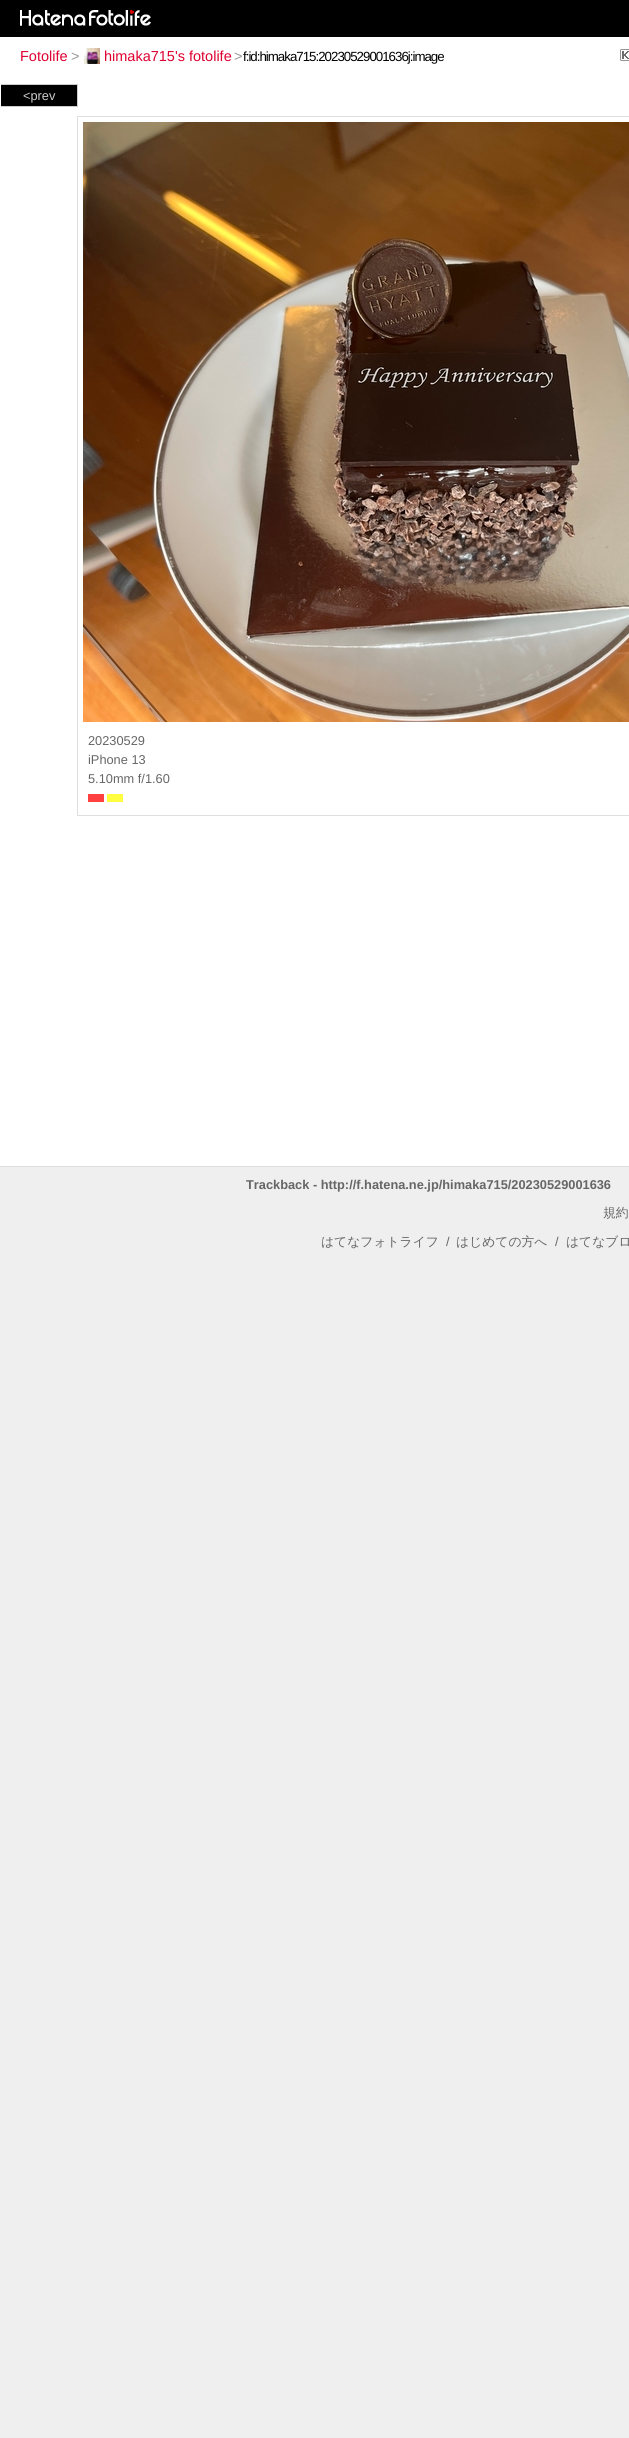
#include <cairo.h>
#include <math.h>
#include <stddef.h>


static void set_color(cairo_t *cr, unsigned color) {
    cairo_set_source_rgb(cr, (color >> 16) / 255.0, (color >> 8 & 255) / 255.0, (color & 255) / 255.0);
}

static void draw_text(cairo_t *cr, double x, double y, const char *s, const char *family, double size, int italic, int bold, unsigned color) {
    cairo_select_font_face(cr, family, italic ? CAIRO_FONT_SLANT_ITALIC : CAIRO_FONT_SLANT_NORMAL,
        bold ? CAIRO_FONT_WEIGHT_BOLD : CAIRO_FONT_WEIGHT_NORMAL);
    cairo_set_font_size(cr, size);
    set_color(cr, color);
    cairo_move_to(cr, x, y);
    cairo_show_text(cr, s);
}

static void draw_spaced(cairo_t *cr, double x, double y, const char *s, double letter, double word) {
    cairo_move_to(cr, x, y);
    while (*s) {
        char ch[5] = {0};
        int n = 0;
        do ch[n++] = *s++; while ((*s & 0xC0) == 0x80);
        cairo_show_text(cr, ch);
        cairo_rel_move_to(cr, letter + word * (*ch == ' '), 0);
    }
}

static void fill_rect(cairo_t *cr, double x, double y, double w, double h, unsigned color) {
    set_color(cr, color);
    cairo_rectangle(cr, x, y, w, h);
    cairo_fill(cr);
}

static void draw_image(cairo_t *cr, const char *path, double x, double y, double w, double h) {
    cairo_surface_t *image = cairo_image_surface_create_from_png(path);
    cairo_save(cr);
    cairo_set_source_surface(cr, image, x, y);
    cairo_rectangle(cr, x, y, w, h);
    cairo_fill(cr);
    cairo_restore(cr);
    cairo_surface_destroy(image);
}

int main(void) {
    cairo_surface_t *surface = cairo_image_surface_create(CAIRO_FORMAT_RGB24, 629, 2438);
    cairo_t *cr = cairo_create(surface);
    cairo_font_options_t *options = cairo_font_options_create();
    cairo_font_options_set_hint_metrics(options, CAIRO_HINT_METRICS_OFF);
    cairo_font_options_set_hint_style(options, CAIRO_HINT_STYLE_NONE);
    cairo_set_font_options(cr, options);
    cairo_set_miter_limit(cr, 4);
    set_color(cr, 0xEFEFEF);
    cairo_paint(cr);
    fill_rect(cr, 0, 0, 629, 37, 0x000000);
    draw_image(cr, "assets/img1.png", 20, 10, 66, 16);
    draw_image(cr, "assets/img2.png", 89, 10, 62, 16);
    fill_rect(cr, 0, 37, 629, 1129, 0xFFFFFF);
    draw_text(cr, 20, 61, "Fotolife", "Liberation Sans", 14.5, 0, 0, 0xDE002F);
    draw_text(cr, 71, 61, ">", "Liberation Sans", 14.5, 0, 0, 0x999999);
    draw_image(cr, "assets/img3.png", 84, 48, 16, 16);
    draw_text(cr, 104, 61, "himaka715's fotolife", "Liberation Sans", 14.5, 0, 0, 0xDE002F);
    draw_text(cr, 234, 61, ">", "Liberation Sans", 14.5, 0, 0, 0x999999);
    cairo_set_font_size(cr, 13.3);
    set_color(cr, 0x000000);
    draw_spaced(cr, 243, 61, "f:id:himaka715:20230529001636j:image", -1, 0);
    draw_image(cr, "assets/img4.png", 620, 49, 9, 12);
    fill_rect(cr, 0, 1166, 629, 1, 0xDEDEDE);
    fill_rect(cr, 1, 85, 76, 21, 0x000000);
    fill_rect(cr, 1, 84, 77, 1, 0xCCCCCC);
    fill_rect(cr, 77, 84, 1, 23, 0xCCCCCC);
    fill_rect(cr, 1, 106, 77, 1, 0xCCCCCC);
    draw_text(cr, 23, 100, "<prev", "Liberation Sans", 12.8, 0, 0, 0xCCCCCC);
    cairo_rectangle(cr, 77.5, 116.5, 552, 699);
    set_color(cr, 0xDEDEDE);
    cairo_set_line_width(cr, 1);
    cairo_stroke(cr);
    draw_image(cr, "assets/img5.png", 83, 122, 546, 600);
    draw_text(cr, 88, 745, "20230529", "Liberation Sans", 12.8, 0, 0, 0x666666);
    draw_text(cr, 88, 764, "iPhone 13", "Liberation Sans", 12.8, 0, 0, 0x666666);
    draw_text(cr, 88, 783, "5.10mm f/1.60", "Liberation Sans", 12.8, 0, 0, 0x666666);
    fill_rect(cr, 88, 794, 16, 8, 0xFF4040);
    fill_rect(cr, 107, 794, 16, 8, 0xFFFF40);
    draw_text(cr, 246, 1189, "Trackback - http://f.hatena.ne.jp/himaka715/20230529001636", "Liberation Sans", 12.8, 0, 1, 0x666666);
    draw_text(cr, 603, 1217, "規約", "WenQuanYi Zen Hei Medium", 12.8, 0, 0, 0x666666);
    draw_text(cr, 321, 1246, "はてなフォトライフ", "WenQuanYi Zen Hei Medium", 12.8, 0, 0, 0x666666);
    draw_text(cr, 446, 1246, "/", "Liberation Sans", 12.8, 0, 0, 0x666666);
    draw_text(cr, 456, 1246, "はじめての方へ", "WenQuanYi Zen Hei Medium", 12.8, 0, 0, 0x666666);
    draw_text(cr, 555, 1246, "/", "Liberation Sans", 12.8, 0, 0, 0x666666);
    draw_text(cr, 566, 1246, "はてなブロ", "WenQuanYi Zen Hei Medium", 12.8, 0, 0, 0x666666);
    cairo_surface_write_to_png(surface, "output.png");
    cairo_font_options_destroy(options);
    cairo_destroy(cr);
    cairo_surface_destroy(surface);
    return 0;
}
